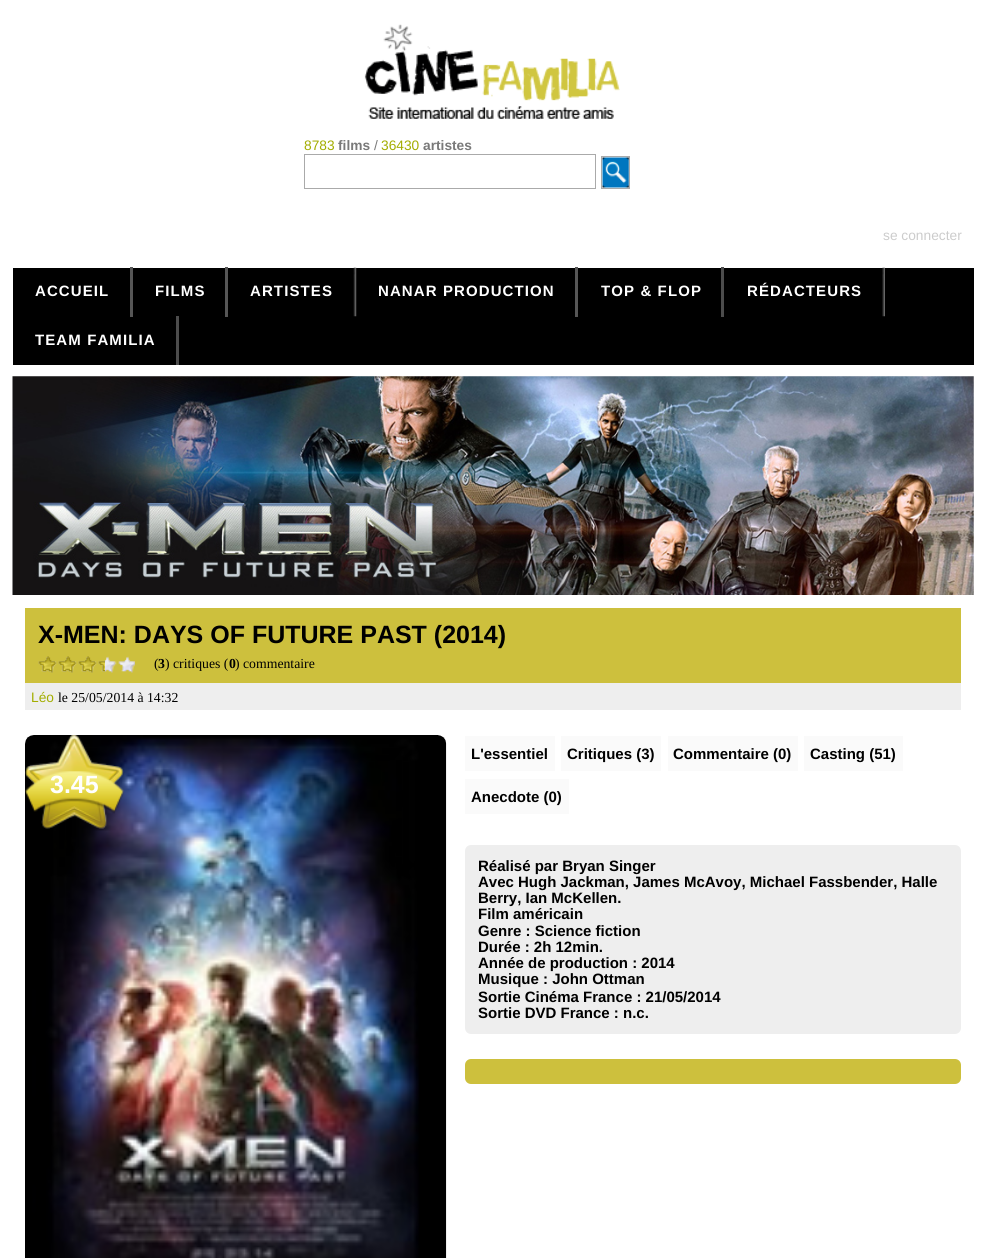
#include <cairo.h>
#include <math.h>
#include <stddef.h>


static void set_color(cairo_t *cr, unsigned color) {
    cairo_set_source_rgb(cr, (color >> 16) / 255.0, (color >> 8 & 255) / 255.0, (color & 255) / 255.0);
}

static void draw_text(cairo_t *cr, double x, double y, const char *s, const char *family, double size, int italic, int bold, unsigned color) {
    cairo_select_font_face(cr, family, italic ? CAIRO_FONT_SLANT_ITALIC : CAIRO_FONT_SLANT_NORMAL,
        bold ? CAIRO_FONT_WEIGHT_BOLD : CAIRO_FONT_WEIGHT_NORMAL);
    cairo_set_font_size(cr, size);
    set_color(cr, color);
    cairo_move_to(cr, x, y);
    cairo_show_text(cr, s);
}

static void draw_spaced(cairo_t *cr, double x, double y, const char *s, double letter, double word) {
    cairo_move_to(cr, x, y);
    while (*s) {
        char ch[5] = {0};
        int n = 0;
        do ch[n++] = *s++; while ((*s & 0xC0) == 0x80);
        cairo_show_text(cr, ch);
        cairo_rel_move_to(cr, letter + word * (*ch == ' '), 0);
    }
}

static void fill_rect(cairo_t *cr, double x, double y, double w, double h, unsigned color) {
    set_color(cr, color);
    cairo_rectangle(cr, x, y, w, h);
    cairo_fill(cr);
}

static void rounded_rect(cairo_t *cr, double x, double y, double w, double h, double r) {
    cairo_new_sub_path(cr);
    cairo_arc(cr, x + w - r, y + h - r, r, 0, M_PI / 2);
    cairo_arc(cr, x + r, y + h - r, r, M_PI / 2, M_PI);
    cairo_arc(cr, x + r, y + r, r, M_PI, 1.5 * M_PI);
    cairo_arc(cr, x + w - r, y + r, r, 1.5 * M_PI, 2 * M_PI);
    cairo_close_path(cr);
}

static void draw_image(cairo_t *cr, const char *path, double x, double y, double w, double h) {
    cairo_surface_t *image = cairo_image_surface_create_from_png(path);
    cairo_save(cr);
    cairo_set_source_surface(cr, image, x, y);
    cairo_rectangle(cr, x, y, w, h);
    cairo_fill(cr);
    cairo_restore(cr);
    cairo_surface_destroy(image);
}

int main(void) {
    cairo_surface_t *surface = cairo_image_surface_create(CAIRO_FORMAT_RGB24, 986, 1258);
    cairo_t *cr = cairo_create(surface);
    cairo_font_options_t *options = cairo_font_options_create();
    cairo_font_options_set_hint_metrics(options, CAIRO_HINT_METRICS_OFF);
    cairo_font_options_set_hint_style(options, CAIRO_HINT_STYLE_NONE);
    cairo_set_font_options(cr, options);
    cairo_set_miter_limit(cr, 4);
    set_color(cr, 0xFFFFFF);
    cairo_paint(cr);
    draw_image(cr, "assets/img1.png", 364, 24, 256, 95);
    draw_text(cr, 304, 150, "8783", "Liberation Sans", 13.75, 0, 0, 0xA3AD00);
    draw_text(cr, 338, 150, "films", "Liberation Sans", 13.75, 0, 1, 0x797979);
    draw_text(cr, 374, 150, "/", "Liberation Sans", 13.75, 0, 0, 0x797979);
    draw_text(cr, 381, 150, "36430", "Liberation Sans", 13.75, 0, 0, 0xA3AD00);
    draw_text(cr, 423, 150, "artistes", "Liberation Sans", 13.75, 0, 1, 0x797979);
    cairo_rectangle(cr, 304.5, 154.5, 291, 34);
    set_color(cr, 0xAAAAAA);
    cairo_set_line_width(cr, 1);
    cairo_stroke(cr);
    cairo_rectangle(cr, 601.5, 156.5, 28, 32);
    cairo_stroke(cr);
    draw_image(cr, "assets/img2.png", 602, 157, 27, 31);
    draw_text(cr, 883, 240, "se connecter", "Liberation Sans", 13.75, 0, 0, 0xCCCCCC);
    fill_rect(cr, 13, 268, 961, 97, 0x000000);
    fill_rect(cr, 130, 267, 3, 50, 0x565656);
    cairo_select_font_face(cr, "Liberation Sans", CAIRO_FONT_SLANT_NORMAL, CAIRO_FONT_WEIGHT_BOLD);
    cairo_set_font_size(cr, 15);
    set_color(cr, 0xFFFFFF);
    draw_spaced(cr, 35, 296, "ACCUEIL", 1.1, 0);
    fill_rect(cr, 225, 267, 3, 50, 0x565656);
    set_color(cr, 0xFFFFFF);
    draw_spaced(cr, 155, 296, "FILMS", 1.1, 0);
    draw_image(cr, "assets/img3.png", 353, 267, 4, 50);
    draw_spaced(cr, 250, 296, "ARTISTES", 1.1, 0);
    fill_rect(cr, 575, 267, 3, 50, 0x565656);
    set_color(cr, 0xFFFFFF);
    draw_spaced(cr, 378, 296, "NANAR PRODUCTION", 1.1, 0);
    fill_rect(cr, 721, 267, 3, 50, 0x4C4C4C);
    set_color(cr, 0xFFFFFF);
    draw_spaced(cr, 601, 296, "TOP & FLOP", 1.1, 0);
    draw_image(cr, "assets/img4.png", 882, 267, 3, 50);
    draw_spaced(cr, 747, 296, "RÉDACTEURS", 1.1, 0);
    fill_rect(cr, 176, 316, 3, 49, 0x4C4C4C);
    set_color(cr, 0xFFFFFF);
    draw_spaced(cr, 35, 345, "TEAM FAMILIA", 1.1, 0);
    draw_image(cr, "assets/img5.png", 12, 376, 962, 219);
    fill_rect(cr, 25, 608, 936, 75, 0xCDC03D);
    draw_text(cr, 38, 643, "X-MEN: DAYS OF FUTURE PAST (2014)", "Liberation Sans", 25, 0, 1, 0x000000);
    draw_image(cr, "assets/img6.png", 38, 656, 97, 17);
    draw_image(cr, "assets/img7.png", 38, 656, 67, 17);
    draw_text(cr, 154, 668, "(", "Liberation Serif", 13.75, 0, 0, 0x000000);
    draw_text(cr, 158, 668, "3", "Liberation Serif", 13.75, 0, 1, 0x000000);
    draw_text(cr, 165, 668, ") critiques (", "Liberation Serif", 13.75, 0, 0, 0x000000);
    draw_text(cr, 229, 668, "0", "Liberation Serif", 13.75, 0, 1, 0x000000);
    draw_text(cr, 235, 668, ") commentaire", "Liberation Serif", 13.75, 0, 0, 0x000000);
    fill_rect(cr, 25, 683, 936, 27, 0xEEEEEE);
    draw_text(cr, 31, 702, "Léo", "Liberation Sans", 13.75, 0, 0, 0xA3AD00);
    draw_text(cr, 58, 702, "le 25/05/2014 à 14:32", "Liberation Serif", 13.75, 0, 0, 0x000000);
    draw_image(cr, "assets/img8.png", 25, 735, 422, 523);
    draw_image(cr, "assets/img9.png", 25, 735, 99, 96);
    draw_text(cr, 50, 793, "3.45", "Liberation Sans", 25, 0, 1, 0xFFFFFF);
    fill_rect(cr, 465, 736, 90, 35, 0xFAFAFA);
    draw_text(cr, 471, 759, "L'essentiel", "Liberation Sans", 15, 0, 1, 0x000000);
    fill_rect(cr, 561, 736, 100, 35, 0xFAFAFA);
    draw_text(cr, 567, 759, "Critiques (3)", "Liberation Sans", 15, 0, 1, 0x000000);
    fill_rect(cr, 668, 736, 130, 35, 0xFAFAFA);
    draw_text(cr, 673, 759, "Commentaire (0)", "Liberation Sans", 15, 0, 1, 0x000000);
    fill_rect(cr, 804, 736, 99, 35, 0xFAFAFA);
    draw_text(cr, 810, 759, "Casting (51)", "Liberation Sans", 15, 0, 1, 0x000000);
    fill_rect(cr, 465, 779, 104, 35, 0xFAFAFA);
    draw_text(cr, 471, 802, "Anecdote (0)", "Liberation Sans", 15, 0, 1, 0x000000);
    set_color(cr, 0xEEEEEE);
    rounded_rect(cr, 465, 845, 496, 189, 6);
    cairo_fill(cr);
    draw_text(cr, 478, 871, "Réalisé par Bryan Singer", "Liberation Sans", 15, 0, 1, 0x000000);
    draw_text(cr, 478, 887, "Avec Hugh Jackman, James McAvoy, Michael Fassbender, Halle", "Liberation Sans", 15, 0, 1, 0x000000);
    draw_text(cr, 478, 903, "Berry, Ian McKellen.", "Liberation Sans", 15, 0, 1, 0x000000);
    draw_text(cr, 478, 919, "Film américain", "Liberation Sans", 15, 0, 1, 0x000000);
    draw_text(cr, 478, 936, "Genre : Science fiction", "Liberation Sans", 15, 0, 1, 0x000000);
    draw_text(cr, 478, 952, "Durée : 2h 12min.", "Liberation Sans", 15, 0, 1, 0x000000);
    draw_text(cr, 478, 968, "Année de production : 2014", "Liberation Sans", 15, 0, 1, 0x000000);
    draw_text(cr, 478, 984, "Musique : John Ottman", "Liberation Sans", 15, 0, 1, 0x000000);
    draw_text(cr, 478, 1002, "Sortie Cinéma France : 21/05/2014", "Liberation Sans", 15, 0, 1, 0x000000);
    draw_text(cr, 478, 1018, "Sortie DVD France : n.c.", "Liberation Sans", 15, 0, 1, 0x000000);
    set_color(cr, 0xCDC03D);
    rounded_rect(cr, 465, 1059, 496, 25, 6);
    cairo_fill(cr);
    cairo_surface_write_to_png(surface, "output.png");
    cairo_font_options_destroy(options);
    cairo_destroy(cr);
    cairo_surface_destroy(surface);
    return 0;
}
